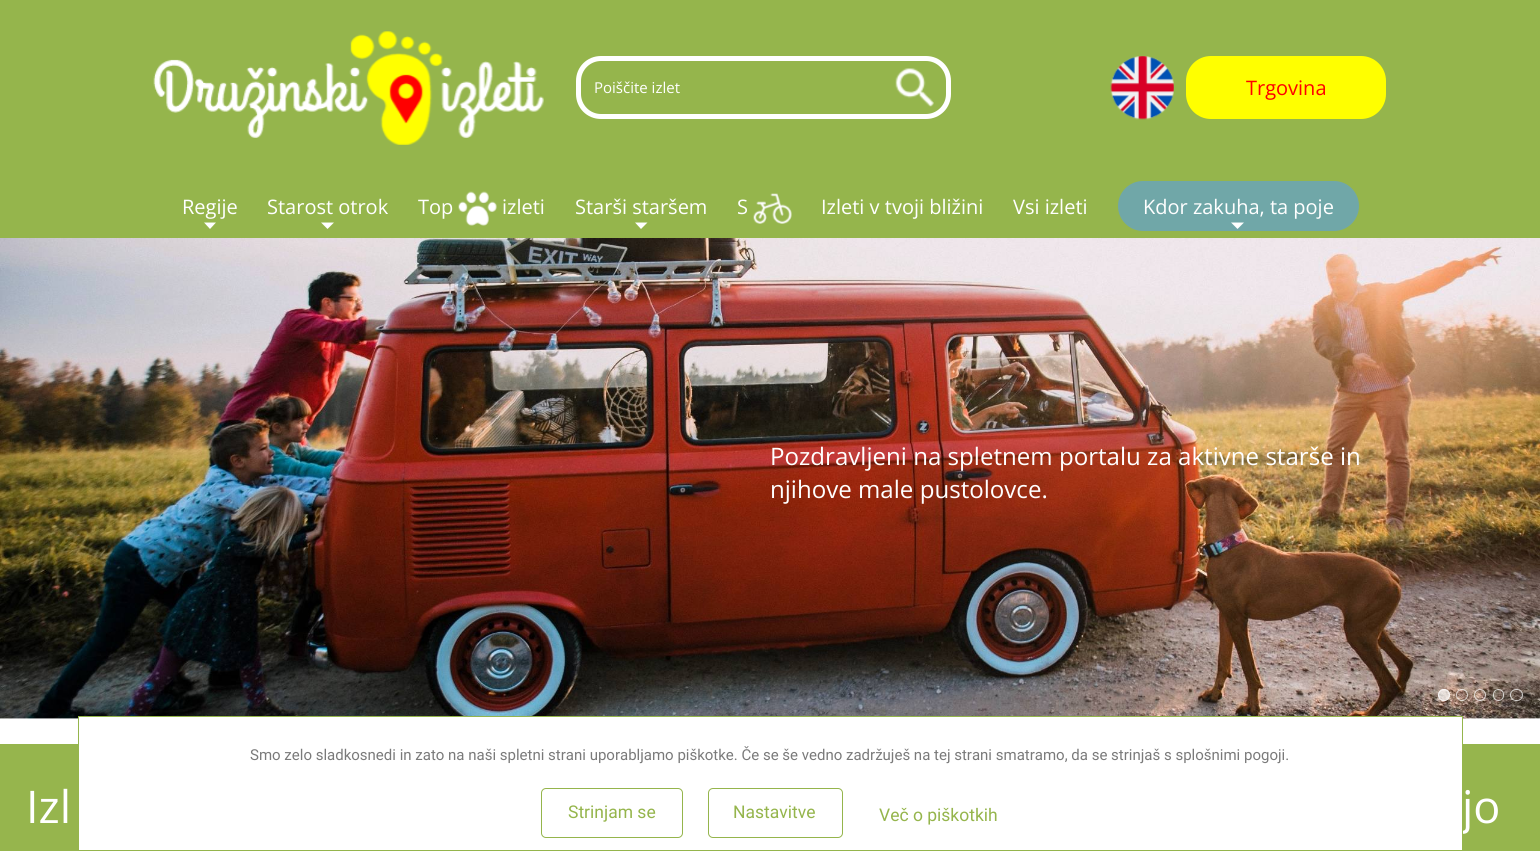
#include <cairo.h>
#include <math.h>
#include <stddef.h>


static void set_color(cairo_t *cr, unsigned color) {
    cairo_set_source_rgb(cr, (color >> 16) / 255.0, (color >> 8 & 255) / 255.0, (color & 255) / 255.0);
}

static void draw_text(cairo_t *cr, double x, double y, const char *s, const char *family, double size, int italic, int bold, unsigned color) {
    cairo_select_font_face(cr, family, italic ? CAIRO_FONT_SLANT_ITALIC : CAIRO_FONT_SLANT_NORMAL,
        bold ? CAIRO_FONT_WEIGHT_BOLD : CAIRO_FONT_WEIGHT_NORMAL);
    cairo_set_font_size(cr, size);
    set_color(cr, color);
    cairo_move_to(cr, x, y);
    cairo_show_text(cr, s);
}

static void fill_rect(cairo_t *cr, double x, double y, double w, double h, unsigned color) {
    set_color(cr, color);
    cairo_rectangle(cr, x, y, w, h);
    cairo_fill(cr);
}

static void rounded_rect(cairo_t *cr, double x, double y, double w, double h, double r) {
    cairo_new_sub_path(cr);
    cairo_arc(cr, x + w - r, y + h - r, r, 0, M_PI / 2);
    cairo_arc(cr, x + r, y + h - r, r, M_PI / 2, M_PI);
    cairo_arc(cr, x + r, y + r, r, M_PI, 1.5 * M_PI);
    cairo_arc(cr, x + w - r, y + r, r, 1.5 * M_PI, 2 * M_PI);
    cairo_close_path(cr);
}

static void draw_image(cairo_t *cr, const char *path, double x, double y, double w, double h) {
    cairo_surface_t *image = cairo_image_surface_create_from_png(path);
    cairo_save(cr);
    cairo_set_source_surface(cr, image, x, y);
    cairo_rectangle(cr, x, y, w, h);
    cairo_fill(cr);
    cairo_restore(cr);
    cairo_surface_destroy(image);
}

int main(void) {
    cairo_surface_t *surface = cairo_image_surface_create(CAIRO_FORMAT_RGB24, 1540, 851);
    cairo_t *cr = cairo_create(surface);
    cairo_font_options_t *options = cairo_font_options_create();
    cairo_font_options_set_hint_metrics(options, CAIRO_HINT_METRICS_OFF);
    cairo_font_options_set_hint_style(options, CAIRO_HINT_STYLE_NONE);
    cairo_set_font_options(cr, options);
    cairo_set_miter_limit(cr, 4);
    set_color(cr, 0xFFFFFF);
    cairo_paint(cr);
    fill_rect(cr, 0, 0, 1540, 238, 0x95B54C);
    draw_image(cr, "assets/img1.png", 153, 31, 391, 114);
    set_color(cr, 0xFFFFFF);
    cairo_set_fill_rule(cr, CAIRO_FILL_RULE_EVEN_ODD);
    cairo_new_path(cr);
    cairo_move_to(cr, 601, 56);
    cairo_line_to(cr, 889, 56);
    cairo_line_to(cr, 889, 119);
    cairo_line_to(cr, 601, 119);
    cairo_curve_to(cr, 587, 119, 576, 108, 576, 94);
    cairo_line_to(cr, 576, 81);
    cairo_curve_to(cr, 576, 67, 587, 56, 601, 56);
    cairo_close_path(cr);
    cairo_move_to(cr, 601, 61);
    cairo_line_to(cr, 889, 61);
    cairo_line_to(cr, 889, 114);
    cairo_line_to(cr, 601, 114);
    cairo_curve_to(cr, 590, 114, 581, 105, 581, 94);
    cairo_line_to(cr, 581, 81);
    cairo_curve_to(cr, 581, 70, 590, 61, 601, 61);
    cairo_close_path(cr);
    cairo_fill(cr);
    draw_text(cr, 594, 93, "Poiščite izlet", "Open Sans", 15, 0, 0, 0xFFFFFF);
    cairo_new_path(cr);
    cairo_move_to(cr, 889, 56);
    cairo_line_to(cr, 926, 56);
    cairo_curve_to(cr, 940, 56, 951, 67, 951, 81);
    cairo_line_to(cr, 951, 94);
    cairo_curve_to(cr, 951, 108, 940, 119, 926, 119);
    cairo_line_to(cr, 889, 119);
    cairo_close_path(cr);
    cairo_move_to(cr, 889, 61);
    cairo_line_to(cr, 926, 61);
    cairo_curve_to(cr, 937, 61, 946, 70, 946, 81);
    cairo_line_to(cr, 946, 94);
    cairo_curve_to(cr, 946, 105, 937, 114, 926, 114);
    cairo_line_to(cr, 889, 114);
    cairo_close_path(cr);
    cairo_fill(cr);
    draw_image(cr, "assets/img2.png", 895, 68, 39, 39);
    draw_image(cr, "assets/img3.png", 1110, 56, 64, 64);
    set_color(cr, 0xFFFF00);
    rounded_rect(cr, 1188.5, 58.5, 195, 58, 22.5);
    cairo_fill_preserve(cr);
    cairo_set_line_width(cr, 5);
    cairo_stroke(cr);
    draw_text(cr, 1246, 95, "Trgovina", "Open Sans", 20, 0, 0, 0xFF0000);
    draw_text(cr, 182, 214, "Regije", "Open Sans", 20, 0, 0, 0xFFFFFF);
    cairo_set_fill_rule(cr, CAIRO_FILL_RULE_WINDING);
    cairo_new_path(cr);
    cairo_move_to(cr, 204, 222.5);
    cairo_line_to(cr, 216, 222.5);
    cairo_line_to(cr, 210, 229);
    cairo_close_path(cr);
    cairo_fill(cr);
    draw_text(cr, 267, 214, "Starost otrok", "Open Sans", 20, 0, 0, 0xFFFFFF);
    cairo_new_path(cr);
    cairo_move_to(cr, 321, 222.5);
    cairo_line_to(cr, 334, 222.5);
    cairo_line_to(cr, 327.5, 229);
    cairo_close_path(cr);
    cairo_fill(cr);
    draw_text(cr, 418, 214, "Top", "Open Sans", 20, 0, 0, 0xFFFFFF);
    draw_image(cr, "assets/img4.png", 458, 191, 39, 35);
    draw_text(cr, 502, 214, "izleti", "Open Sans", 20, 0, 0, 0xFFFFFF);
    draw_text(cr, 575, 214, "Starši staršem", "Open Sans", 20, 0, 0, 0xFFFFFF);
    cairo_new_path(cr);
    cairo_move_to(cr, 635, 222.5);
    cairo_line_to(cr, 647.5, 222.5);
    cairo_line_to(cr, 641, 229);
    cairo_close_path(cr);
    cairo_fill(cr);
    draw_text(cr, 737, 214, "S", "Open Sans", 20, 0, 0, 0xFFFFFF);
    draw_image(cr, "assets/img5.png", 753, 193, 39, 31);
    draw_text(cr, 821, 214, "Izleti v tvoji bližini", "Open Sans", 20, 0, 0, 0xFFFFFF);
    draw_text(cr, 1013, 214, "Vsi izleti", "Open Sans", 20, 0, 0, 0xFFFFFF);
    set_color(cr, 0x70A7A8);
    rounded_rect(cr, 1118, 181, 241, 50, 25);
    cairo_fill(cr);
    draw_text(cr, 1143, 214, "Kdor zakuha, ta poje", "Open Sans", 20, 0, 0, 0xFFFFFF);
    cairo_new_path(cr);
    cairo_move_to(cr, 1231, 222.5);
    cairo_line_to(cr, 1244, 222.5);
    cairo_line_to(cr, 1237.5, 229);
    cairo_close_path(cr);
    cairo_fill(cr);
    draw_image(cr, "assets/img6.png", 0, 238, 1540, 481);
    draw_text(cr, 770, 465, "Pozdravljeni na spletnem portalu za aktivne starše in", "Open Sans", 24.1, 0, 0, 0xFFFFFF);
    draw_text(cr, 770, 498, "njihove male pustolovce.", "Open Sans", 24.1, 0, 0, 0xFFFFFF);
    cairo_set_source_rgba(cr, 1, 1, 1, 0.7);
    cairo_new_path(cr);
    cairo_arc(cr, 1444, 695, 6, 0, 2 * M_PI);
    cairo_fill(cr);
    cairo_arc(cr, 1444, 695, 5.5, 0, 2 * M_PI);
    cairo_set_line_width(cr, 1);
    cairo_stroke(cr);
    cairo_arc(cr, 1462, 695, 5.5, 0, 2 * M_PI);
    cairo_stroke(cr);
    cairo_arc(cr, 1480, 695, 5.5, 0, 2 * M_PI);
    cairo_stroke(cr);
    rounded_rect(cr, 1493.5, 689.5, 10, 11, 5);
    cairo_stroke(cr);
    rounded_rect(cr, 1510.5, 689.5, 12, 11, 5.5);
    cairo_stroke(cr);
    fill_rect(cr, 79, 717, 1383, 2, 0xFFFFFF);
    fill_rect(cr, 1463, 744, 77, 107, 0x96B54D);
    draw_text(cr, 1462, 823, "jo", "Open Sans", 45, 0, 0, 0xFFFFFF);
    cairo_rectangle(cr, 78.5, 716.5, 1384, 134);
    set_color(cr, 0x95B54C);
    cairo_stroke(cr);
    draw_text(cr, 250, 760, "Smo zelo sladkosnedi in zato na naši spletni strani uporabljamo piškotke. Če se še vedno zadržuješ na tej strani smatramo, da se strinjaš s splošnimi pogoji.", "Roboto", 15, 0, 0, 0x7A7A7A);
    rounded_rect(cr, 541.5, 788.5, 141, 49, 4.5);
    set_color(cr, 0x95B54C);
    cairo_stroke(cr);
    draw_text(cr, 568, 818, "Strinjam se", "Roboto", 17.5, 0, 0, 0x95B54C);
    rounded_rect(cr, 708.5, 788.5, 134, 49, 4.5);
    cairo_stroke(cr);
    draw_text(cr, 733, 818, "Nastavitve", "Roboto", 17.5, 0, 0, 0x95B54C);
    draw_text(cr, 879, 821, "Več o piškotkih", "Roboto", 17.5, 0, 0, 0x95B54C);
    fill_rect(cr, 0, 744, 78, 107, 0x96B54D);
    draw_text(cr, 26, 823, "Izl", "Open Sans", 45, 0, 0, 0xFFFFFF);
    cairo_surface_write_to_png(surface, "output.png");
    cairo_font_options_destroy(options);
    cairo_destroy(cr);
    cairo_surface_destroy(surface);
    return 0;
}
